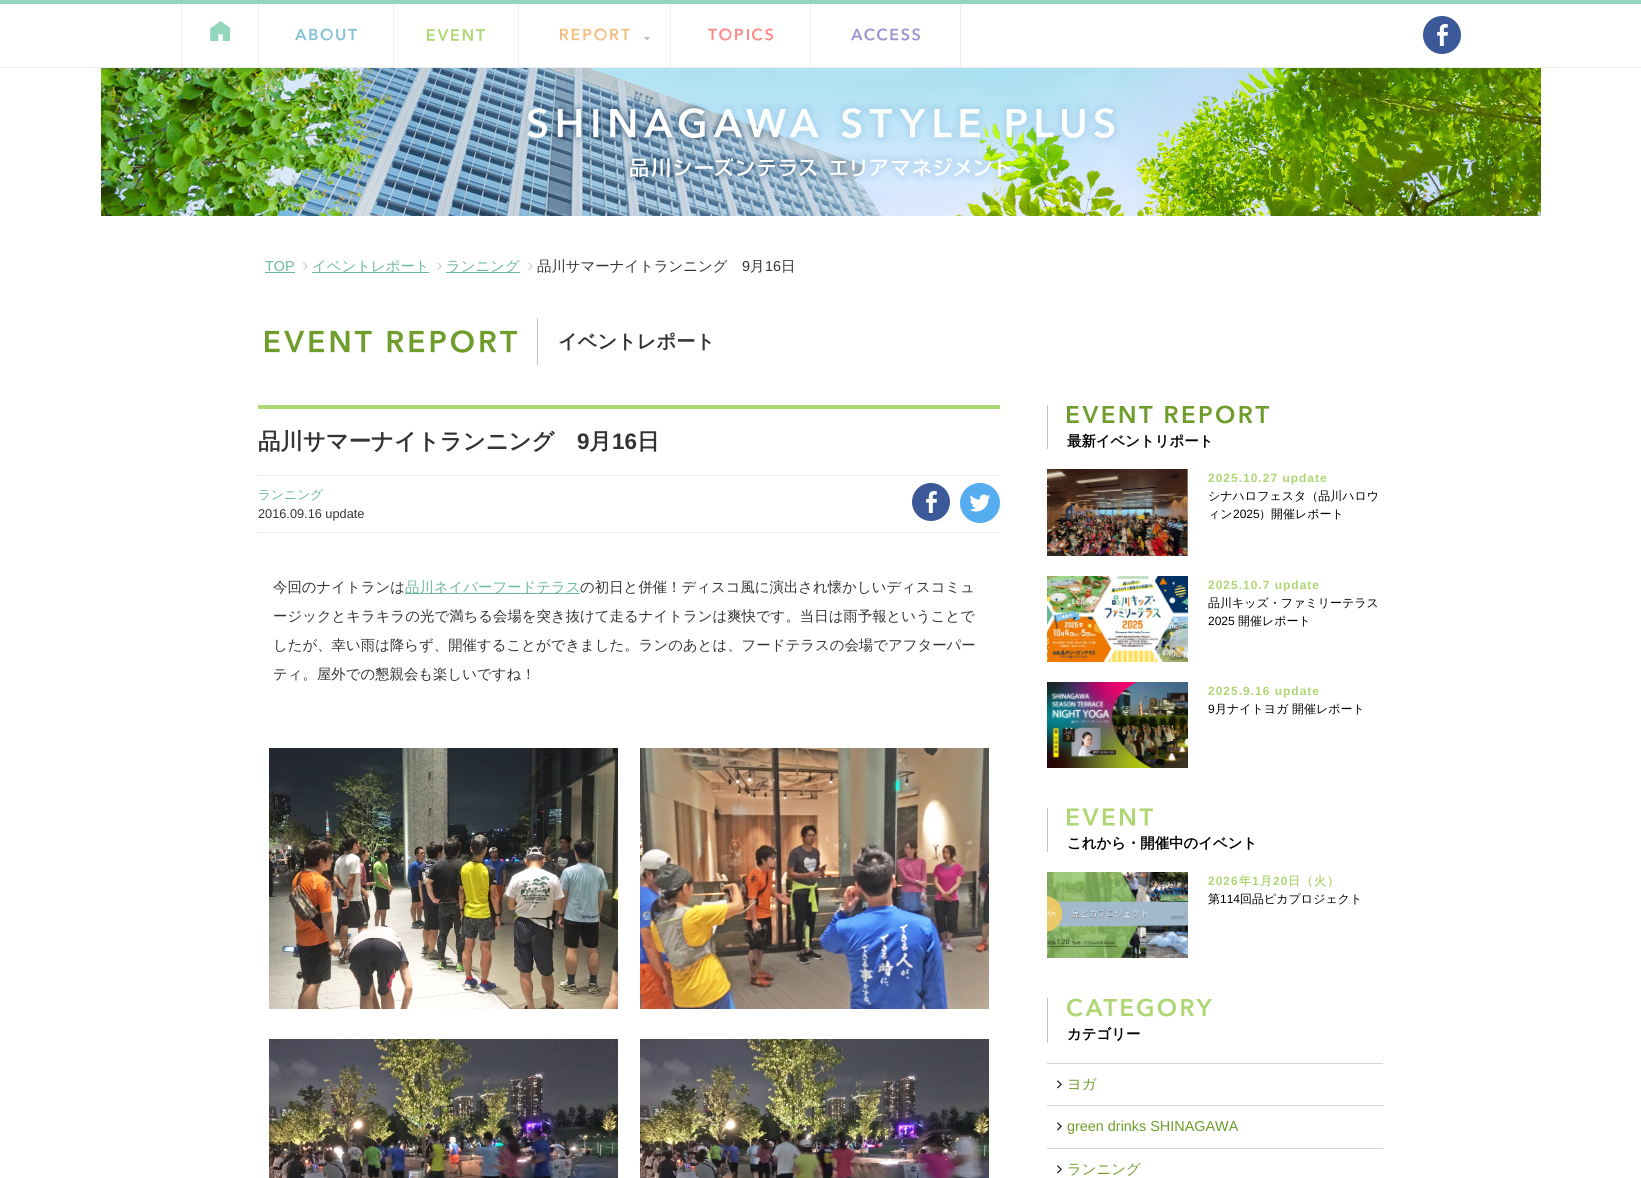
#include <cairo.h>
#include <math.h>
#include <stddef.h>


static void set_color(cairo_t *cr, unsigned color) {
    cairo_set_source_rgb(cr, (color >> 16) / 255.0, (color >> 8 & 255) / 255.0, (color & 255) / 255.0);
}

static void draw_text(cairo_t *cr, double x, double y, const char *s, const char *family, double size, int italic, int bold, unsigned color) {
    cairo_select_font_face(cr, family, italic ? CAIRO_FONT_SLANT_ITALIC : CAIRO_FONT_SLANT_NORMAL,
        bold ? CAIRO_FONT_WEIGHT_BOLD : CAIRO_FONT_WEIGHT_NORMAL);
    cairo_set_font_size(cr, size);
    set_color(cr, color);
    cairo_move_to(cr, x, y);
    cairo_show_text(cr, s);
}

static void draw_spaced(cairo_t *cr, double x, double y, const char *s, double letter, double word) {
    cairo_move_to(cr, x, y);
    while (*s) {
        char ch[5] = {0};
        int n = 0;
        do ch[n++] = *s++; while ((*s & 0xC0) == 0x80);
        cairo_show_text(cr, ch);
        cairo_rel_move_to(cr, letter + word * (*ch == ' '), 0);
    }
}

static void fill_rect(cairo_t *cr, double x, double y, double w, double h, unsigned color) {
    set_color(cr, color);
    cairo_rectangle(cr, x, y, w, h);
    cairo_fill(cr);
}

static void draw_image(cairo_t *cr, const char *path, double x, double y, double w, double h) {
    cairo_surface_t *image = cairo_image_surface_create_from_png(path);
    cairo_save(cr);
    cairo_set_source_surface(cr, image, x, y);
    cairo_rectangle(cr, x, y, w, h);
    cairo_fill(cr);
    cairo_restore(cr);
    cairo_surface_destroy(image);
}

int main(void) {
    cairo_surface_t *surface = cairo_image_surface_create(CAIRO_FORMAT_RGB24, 1641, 1178);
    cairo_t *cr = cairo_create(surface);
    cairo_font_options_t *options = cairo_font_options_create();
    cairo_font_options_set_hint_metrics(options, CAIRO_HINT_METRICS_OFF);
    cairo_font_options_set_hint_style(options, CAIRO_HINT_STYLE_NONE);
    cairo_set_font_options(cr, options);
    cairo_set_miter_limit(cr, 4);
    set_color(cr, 0xFFFFFF);
    cairo_paint(cr);
    fill_rect(cr, 0, 0, 1641, 4, 0x92D6BC);
    fill_rect(cr, 0, 67, 1641, 1, 0xEEEEEE);
    fill_rect(cr, 960, 4, 1, 63, 0xEEEEEE);
    fill_rect(cr, 181, 4, 1, 63, 0xEEEEEE);
    draw_image(cr, "assets/img1.png", 210, 21, 20, 20);
    fill_rect(cr, 258, 4, 1, 63, 0xEEEEEE);
    draw_image(cr, "assets/img2.png", 295, 28, 62, 13);
    fill_rect(cr, 393, 4, 1, 63, 0xEEEEEE);
    draw_image(cr, "assets/img3.png", 427, 29, 58, 12);
    fill_rect(cr, 518, 4, 1, 63, 0xEEEEEE);
    draw_image(cr, "assets/img4.png", 560, 28, 70, 13);
    draw_image(cr, "assets/img5.png", 644, 37, 6, 4);
    fill_rect(cr, 670, 4, 1, 63, 0xEEEEEE);
    draw_image(cr, "assets/img6.png", 708, 28, 65, 13);
    fill_rect(cr, 810, 4, 1, 63, 0xEEEEEE);
    draw_image(cr, "assets/img7.png", 851, 28, 69, 13);
    draw_image(cr, "assets/img8.png", 1423, 16, 38, 38);
    draw_image(cr, "assets/img9.png", 101, 68, 1440, 148);
    draw_text(cr, 265, 271, "TOP", "Liberation Sans", 14.4, 0, 0, 0x6BB99B);
    fill_rect(cr, 265, 272, 30, 1, 0x6BB99B);
    draw_image(cr, "assets/img10.png", 303, 262, 5, 9);
    fill_rect(cr, 312, 272, 117, 1, 0x6BB99B);
    draw_text(cr, 312, 271, "イベントレポート", "WenQuanYi Zen Hei Medium", 14.4, 0, 0, 0x6BB99B);
    draw_image(cr, "assets/img10.png", 437, 262, 5, 9);
    fill_rect(cr, 446, 272, 74, 1, 0x6BB99B);
    draw_text(cr, 446, 271, "ランニング", "WenQuanYi Zen Hei Medium", 14.4, 0, 0, 0x6BB99B);
    draw_image(cr, "assets/img10.png", 528, 262, 5, 9);
    draw_text(cr, 537, 271, "品川サマーナイトランニング", "WenQuanYi Zen Hei Medium", 14.4, 0, 0, 0x333333);
    draw_text(cr, 742, 271, "9", "Liberation Sans", 14.4, 0, 0, 0x333333);
    draw_text(cr, 750, 271, "月", "WenQuanYi Zen Hei Medium", 14.4, 0, 0, 0x333333);
    draw_text(cr, 765, 271, "16", "Liberation Sans", 14.4, 0, 0, 0x333333);
    draw_text(cr, 781, 271, "日", "WenQuanYi Zen Hei Medium", 14.4, 0, 0, 0x333333);
    draw_image(cr, "assets/img11.png", 265, 330, 252, 23);
    fill_rect(cr, 537, 318, 1, 47, 0xC5C5C5);
    draw_text(cr, 558, 348, "イベントレポート", "WenQuanYi Zen Hei", 19.25, 0, 1, 0x333333);
    fill_rect(cr, 258, 405, 742, 4, 0xAED672);
    draw_text(cr, 258, 449, "品川サマーナイトランニング", "WenQuanYi Zen Hei", 22.4, 0, 1, 0x333333);
    draw_text(cr, 577, 449, "9", "Liberation Sans", 22.4, 0, 1, 0x333333);
    draw_text(cr, 589, 449, "月", "WenQuanYi Zen Hei", 22.4, 0, 1, 0x333333);
    draw_text(cr, 612, 449, "16", "Liberation Sans", 22.4, 0, 1, 0x333333);
    draw_text(cr, 637, 449, "日", "WenQuanYi Zen Hei", 22.4, 0, 1, 0x333333);
    fill_rect(cr, 258, 475, 742, 1, 0xEEEEEE);
    fill_rect(cr, 258, 532, 742, 1, 0xEEEEEE);
    draw_text(cr, 258, 499, "ランニング", "WenQuanYi Zen Hei Medium", 12.75, 0, 0, 0x6BB99B);
    draw_text(cr, 258, 518, "2016.09.16 update", "Liberation Sans", 12.75, 0, 0, 0x333333);
    draw_image(cr, "assets/img8.png", 912, 483, 38, 38);
    draw_image(cr, "assets/img12.png", 960, 483, 40, 40);
    draw_text(cr, 273, 592, "今回のナイトランは", "WenQuanYi Zen Hei Medium", 14.4, 0, 0, 0x333333);
    fill_rect(cr, 405, 593, 175, 1, 0x6BB99B);
    draw_text(cr, 405, 592, "品川ネイバーフードテラス", "WenQuanYi Zen Hei Medium", 14.4, 0, 0, 0x6BB99B);
    draw_text(cr, 580, 592, "の初日と併催！ディスコ風に演出され懐かしいディスコミュ", "WenQuanYi Zen Hei Medium", 14.4, 0, 0, 0x333333);
    draw_text(cr, 273, 621, "ージックとキラキラの光で満ちる会場を突き抜けて走るナイトランは爽快です。当日は雨予報ということで", "WenQuanYi Zen Hei Medium", 14.4, 0, 0, 0x333333);
    draw_text(cr, 273, 650, "したが、幸い雨は降らず、開催することができました。ランのあとは、フードテラスの会場でアフターパー", "WenQuanYi Zen Hei Medium", 14.4, 0, 0, 0x333333);
    draw_text(cr, 273, 679, "ティ。屋外での懇親会も楽しいですね！", "WenQuanYi Zen Hei Medium", 14.4, 0, 0, 0x333333);
    draw_image(cr, "assets/img13.png", 269, 748, 349, 261);
    draw_image(cr, "assets/img14.png", 640, 748, 349, 261);
    draw_image(cr, "assets/img15.png", 269, 1039, 349, 139);
    draw_image(cr, "assets/img16.png", 640, 1039, 349, 139);
    fill_rect(cr, 1047, 405, 1, 44, 0xC5C5C5);
    draw_image(cr, "assets/img17.png", 1067, 405, 202, 19);
    draw_text(cr, 1067, 446, "最新イベントリポート", "WenQuanYi Zen Hei", 14.4, 0, 1, 0x000000);
    draw_image(cr, "assets/img18.png", 1047, 469, 141, 87);
    cairo_select_font_face(cr, "Liberation Sans", CAIRO_FONT_SLANT_NORMAL, CAIRO_FONT_WEIGHT_BOLD);
    cairo_set_font_size(cr, 12);
    set_color(cr, 0xAED672);
    draw_spaced(cr, 1208, 482, "2025.10.27 update", 1, 0);
    draw_text(cr, 1208, 500, "シナハロフェスタ（品川ハロウ", "WenQuanYi Zen Hei Medium", 12, 0, 0, 0x000000);
    draw_text(cr, 1208, 518, "ィン", "WenQuanYi Zen Hei Medium", 12, 0, 0, 0x000000);
    draw_text(cr, 1233, 518, "2025", "Liberation Sans", 12, 0, 0, 0x000000);
    draw_text(cr, 1259, 518, "）開催レポート", "WenQuanYi Zen Hei Medium", 12, 0, 0, 0x000000);
    draw_image(cr, "assets/img19.png", 1047, 576, 141, 86);
    cairo_select_font_face(cr, "Liberation Sans", CAIRO_FONT_SLANT_NORMAL, CAIRO_FONT_WEIGHT_BOLD);
    set_color(cr, 0xAED672);
    draw_spaced(cr, 1208, 589, "2025.10.7 update", 1, 0);
    draw_text(cr, 1208, 607, "品川キッズ・ファミリーテラス", "WenQuanYi Zen Hei Medium", 12, 0, 0, 0x000000);
    draw_text(cr, 1208, 625, "2025", "Liberation Sans", 12, 0, 0, 0x000000);
    draw_text(cr, 1238, 625, "開催レポート", "WenQuanYi Zen Hei Medium", 12, 0, 0, 0x000000);
    draw_image(cr, "assets/img20.png", 1047, 682, 141, 86);
    cairo_select_font_face(cr, "Liberation Sans", CAIRO_FONT_SLANT_NORMAL, CAIRO_FONT_WEIGHT_BOLD);
    set_color(cr, 0xAED672);
    draw_spaced(cr, 1208, 695, "2025.9.16 update", 1, 0);
    draw_text(cr, 1208, 713, "9", "Liberation Sans", 12, 0, 0, 0x000000);
    draw_text(cr, 1215, 713, "月ナイトヨガ 開催レポート", "WenQuanYi Zen Hei Medium", 12, 0, 0, 0x000000);
    fill_rect(cr, 1047, 808, 1, 44, 0xC5C5C5);
    draw_image(cr, "assets/img21.png", 1067, 808, 86, 18);
    draw_text(cr, 1067, 848, "これから・開催中のイベント", "WenQuanYi Zen Hei", 14.4, 0, 1, 0x000000);
    draw_image(cr, "assets/img22.png", 1047, 872, 141, 86);
    cairo_select_font_face(cr, "Liberation Sans", CAIRO_FONT_SLANT_NORMAL, CAIRO_FONT_WEIGHT_BOLD);
    cairo_set_font_size(cr, 12);
    set_color(cr, 0xAED672);
    draw_spaced(cr, 1208, 885, "2026", 1, 0);
    cairo_select_font_face(cr, "WenQuanYi Zen Hei", CAIRO_FONT_SLANT_NORMAL, CAIRO_FONT_WEIGHT_BOLD);
    draw_spaced(cr, 1239, 885, "年", 1, 0);
    cairo_select_font_face(cr, "Liberation Sans", CAIRO_FONT_SLANT_NORMAL, CAIRO_FONT_WEIGHT_BOLD);
    draw_spaced(cr, 1252, 885, "1", 1, 0);
    cairo_select_font_face(cr, "WenQuanYi Zen Hei", CAIRO_FONT_SLANT_NORMAL, CAIRO_FONT_WEIGHT_BOLD);
    draw_spaced(cr, 1260, 885, "月", 1, 0);
    cairo_select_font_face(cr, "Liberation Sans", CAIRO_FONT_SLANT_NORMAL, CAIRO_FONT_WEIGHT_BOLD);
    draw_spaced(cr, 1273, 885, "20", 1, 0);
    cairo_select_font_face(cr, "WenQuanYi Zen Hei", CAIRO_FONT_SLANT_NORMAL, CAIRO_FONT_WEIGHT_BOLD);
    draw_spaced(cr, 1288, 885, "日（火）", 1, 0);
    draw_text(cr, 1208, 903, "第", "WenQuanYi Zen Hei Medium", 12, 0, 0, 0x000000);
    draw_text(cr, 1220, 903, "114", "Liberation Sans", 12, 0, 0, 0x000000);
    draw_text(cr, 1240, 903, "回品ピカプロジェクト", "WenQuanYi Zen Hei Medium", 12, 0, 0, 0x000000);
    fill_rect(cr, 1047, 998, 1, 45, 0xC5C5C5);
    draw_image(cr, "assets/img23.png", 1067, 998, 145, 19);
    draw_text(cr, 1067, 1039, "カテゴリー", "WenQuanYi Zen Hei", 14.4, 0, 1, 0x000000);
    fill_rect(cr, 1047, 1063, 336, 1, 0xD5D5D5);
    fill_rect(cr, 1047, 1105, 336, 1, 0xD5D5D5);
    draw_image(cr, "assets/img24.png", 1057, 1080, 5, 9);
    draw_text(cr, 1067, 1089, "ヨガ", "WenQuanYi Zen Hei Medium", 14.4, 0, 0, 0x6F9D2B);
    fill_rect(cr, 1047, 1148, 336, 1, 0xD5D5D5);
    draw_image(cr, "assets/img24.png", 1057, 1122, 5, 9);
    draw_text(cr, 1067, 1131, "green drinks SHINAGAWA", "Liberation Sans", 14.4, 0, 0, 0x6F9D2B);
    draw_image(cr, "assets/img24.png", 1057, 1165, 5, 9);
    draw_text(cr, 1067, 1174, "ランニング", "WenQuanYi Zen Hei Medium", 14.4, 0, 0, 0x6F9D2B);
    cairo_surface_write_to_png(surface, "output.png");
    cairo_font_options_destroy(options);
    cairo_destroy(cr);
    cairo_surface_destroy(surface);
    return 0;
}
